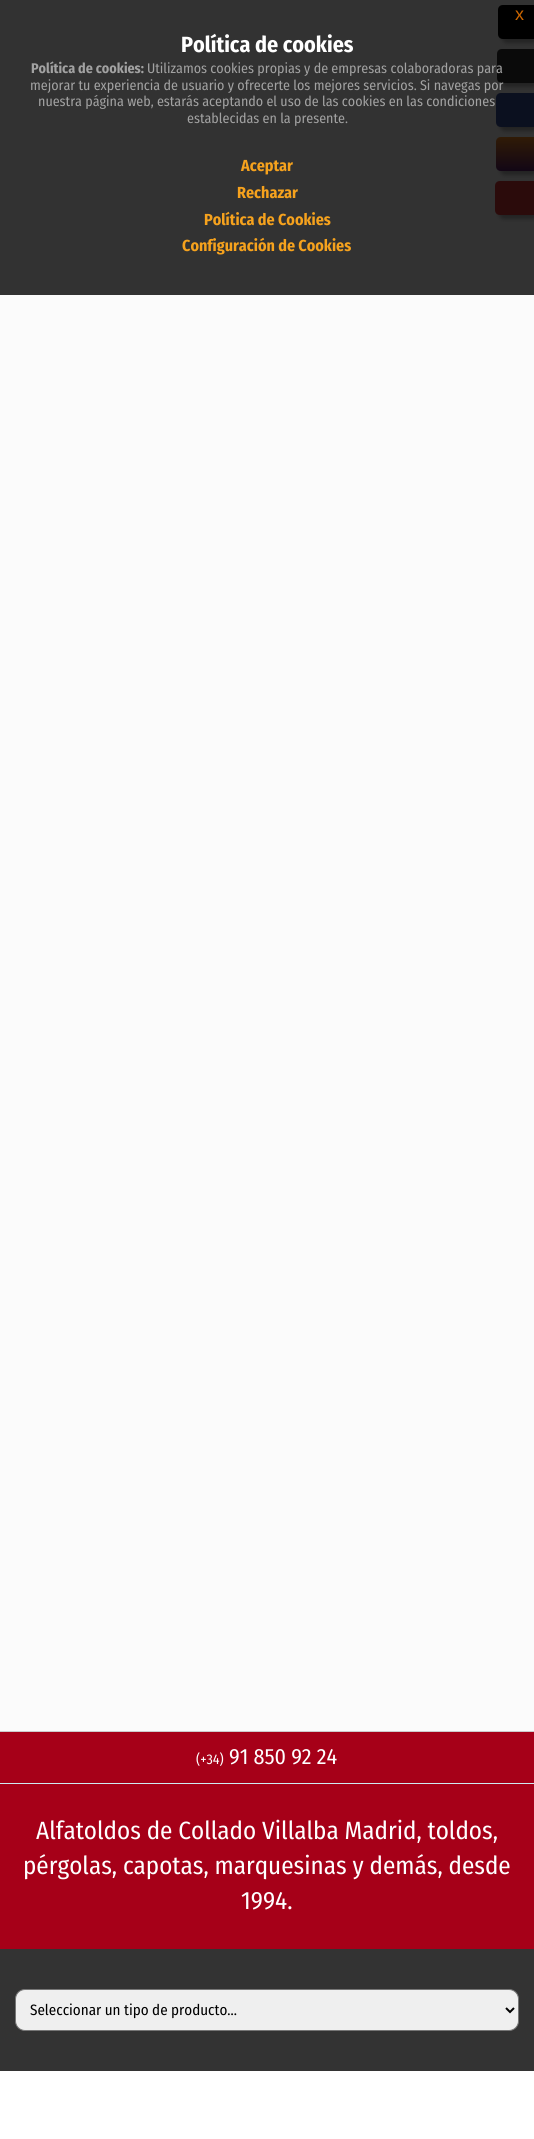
#include <cairo.h>
#include <math.h>
#include <stddef.h>


static void set_color(cairo_t *cr, unsigned color) {
    cairo_set_source_rgb(cr, (color >> 16) / 255.0, (color >> 8 & 255) / 255.0, (color & 255) / 255.0);
}

static void draw_text(cairo_t *cr, double x, double y, const char *s, const char *family, double size, int italic, int bold, unsigned color) {
    cairo_select_font_face(cr, family, italic ? CAIRO_FONT_SLANT_ITALIC : CAIRO_FONT_SLANT_NORMAL,
        bold ? CAIRO_FONT_WEIGHT_BOLD : CAIRO_FONT_WEIGHT_NORMAL);
    cairo_set_font_size(cr, size);
    set_color(cr, color);
    cairo_move_to(cr, x, y);
    cairo_show_text(cr, s);
}

static void fill_rect(cairo_t *cr, double x, double y, double w, double h, unsigned color) {
    set_color(cr, color);
    cairo_rectangle(cr, x, y, w, h);
    cairo_fill(cr);
}

static void rounded_rect(cairo_t *cr, double x, double y, double w, double h, double r) {
    cairo_new_sub_path(cr);
    cairo_arc(cr, x + w - r, y + h - r, r, 0, M_PI / 2);
    cairo_arc(cr, x + r, y + h - r, r, M_PI / 2, M_PI);
    cairo_arc(cr, x + r, y + r, r, M_PI, 1.5 * M_PI);
    cairo_arc(cr, x + w - r, y + r, r, 1.5 * M_PI, 2 * M_PI);
    cairo_close_path(cr);
}

static void draw_shadow(cairo_t *cr, double x, double y, double w, double h, double r, double blur, double alpha) {
    cairo_push_group_with_content(cr, CAIRO_CONTENT_ALPHA);
    cairo_set_operator(cr, CAIRO_OPERATOR_SOURCE);
    for (int i = 15; i >= -15 && fmin(w, h) + blur * i / 3 > 0; i -= 2) {
        double e = blur * i / 6;
        cairo_set_source_rgba(cr, 0, 0, 0, alpha * erfc((i - 1) / 8.5) / 2);
        rounded_rect(cr, x - e, y - e, w + 2 * e, h + 2 * e, fmax(0, fmin(r + e + blur * .6, fmin(w, h) / 2 + e)));
        cairo_fill(cr);
    }
    cairo_pattern_t *soft = cairo_pop_group(cr);
    cairo_mask(cr, soft);
    cairo_pattern_destroy(soft);
}

int main(void) {
    cairo_surface_t *surface = cairo_image_surface_create(CAIRO_FORMAT_RGB24, 534, 2139);
    cairo_t *cr = cairo_create(surface);
    cairo_font_options_t *options = cairo_font_options_create();
    cairo_font_options_set_hint_metrics(options, CAIRO_HINT_METRICS_OFF);
    cairo_font_options_set_hint_style(options, CAIRO_HINT_STYLE_NONE);
    cairo_set_font_options(cr, options);
    cairo_set_miter_limit(cr, 4);
    cairo_pattern_t *gradient;
    set_color(cr, 0xFFFFFF);
    cairo_paint(cr);
    fill_rect(cr, 0, 0, 534, 295, 0x323232);
    set_color(cr, 0x000000);
    draw_shadow(cr, 502, 9, 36, 34, 5, 2, 0.3);
    set_color(cr, 0x000000);
    cairo_new_path(cr);
    cairo_move_to(cr, 503, 5);
    cairo_line_to(cr, 534, 5);
    cairo_line_to(cr, 534, 39);
    cairo_line_to(cr, 503, 39);
    cairo_curve_to(cr, 500, 39, 498, 37, 498, 34);
    cairo_line_to(cr, 498, 10);
    cairo_curve_to(cr, 498, 7, 500, 5, 503, 5);
    cairo_close_path(cr);
    cairo_fill(cr);
    draw_text(cr, 515, 20, "x", "Liberation Sans", 18, 0, 0, 0xCC6600);
    draw_text(cr, 181, 52, "Política de cookies", "Fira Sans Condensed", 22, 0, 1, 0xFFFFFF);
    draw_text(cr, 31, 73, "Política de cookies:", "Fira Sans Condensed", 14, 0, 1, 0xA2A2A2);
    set_color(cr, 0x000000);
    draw_shadow(cr, 501, 53, 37, 34, 5, 2, 0.3);
    set_color(cr, 0x0A0A0A);
    cairo_new_path(cr);
    cairo_move_to(cr, 502, 49);
    cairo_line_to(cr, 534, 49);
    cairo_line_to(cr, 534, 83);
    cairo_line_to(cr, 502, 83);
    cairo_curve_to(cr, 499, 83, 497, 81, 497, 78);
    cairo_line_to(cr, 497, 54);
    cairo_curve_to(cr, 497, 51, 499, 49, 502, 49);
    cairo_close_path(cr);
    cairo_fill(cr);
    draw_text(cr, 147, 73, "Utilizamos cookies propias y de empresas colaboradoras para", "Fira Sans Condensed", 14, 0, 0, 0xA2A2A2);
    set_color(cr, 0x000000);
    draw_shadow(cr, 500, 97, 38, 34, 5, 2, 0.3);
    draw_text(cr, 30, 90, "mejorar tu experiencia de usuario y ofrecerte los mejores servicios. Si navegas por", "Fira Sans Condensed", 14, 0, 0, 0xA2A2A2);
    draw_text(cr, 38, 106, "nuestra página web, estarás aceptando el uso de las cookies en las condiciones", "Fira Sans Condensed", 14, 0, 0, 0xA2A2A2);
    draw_text(cr, 187, 123, "establecidas en la presente.", "Fira Sans Condensed", 14, 0, 0, 0xA2A2A2);
    draw_text(cr, 241, 171, "Aceptar", "Fira Sans Condensed", 16, 0, 1, 0xF6A21D);
    draw_text(cr, 237, 198, "Rechazar", "Fira Sans Condensed", 16, 0, 1, 0xF6A21D);
    draw_text(cr, 204, 225, "Política de Cookies", "Fira Sans Condensed", 16, 0, 1, 0xF6A21D);
    draw_text(cr, 182, 251, "Configuración de Cookies", "Fira Sans Condensed", 16, 0, 1, 0xF6A21D);
    fill_rect(cr, 0, 295, 534, 1436, 0xFBFBFB);
    fill_rect(cr, 0, 1731, 534, 1, 0xCCCCCC);
    set_color(cr, 0x0B101F);
    cairo_new_path(cr);
    cairo_move_to(cr, 501, 93);
    cairo_line_to(cr, 534, 93);
    cairo_line_to(cr, 534, 127);
    cairo_line_to(cr, 501, 127);
    cairo_curve_to(cr, 498, 127, 496, 125, 496, 122);
    cairo_line_to(cr, 496, 98);
    cairo_curve_to(cr, 496, 95, 498, 93, 501, 93);
    cairo_close_path(cr);
    cairo_fill(cr);
    set_color(cr, 0x000000);
    draw_shadow(cr, 500, 141, 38, 34, 5, 2, 0.3);
    gradient = cairo_pattern_create_linear(515, 137, 515, 171);
    cairo_pattern_add_color_stop_rgba(gradient, 0, 0.188, 0.106, 0.024, 1);
    cairo_pattern_add_color_stop_rgba(gradient, 1, 0.071, 0.024, 0.082, 1);
    cairo_set_source(cr, gradient);
    cairo_pattern_destroy(gradient);
    cairo_new_path(cr);
    cairo_move_to(cr, 501, 137);
    cairo_line_to(cr, 534, 137);
    cairo_line_to(cr, 534, 171);
    cairo_line_to(cr, 501, 171);
    cairo_curve_to(cr, 498, 171, 496, 169, 496, 166);
    cairo_line_to(cr, 496, 142);
    cairo_curve_to(cr, 496, 139, 498, 137, 501, 137);
    cairo_close_path(cr);
    cairo_fill(cr);
    set_color(cr, 0x000000);
    draw_shadow(cr, 499, 185, 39, 34, 5, 2, 0.3);
    set_color(cr, 0x2B0B0B);
    cairo_new_path(cr);
    cairo_move_to(cr, 500, 181);
    cairo_line_to(cr, 534, 181);
    cairo_line_to(cr, 534, 215);
    cairo_line_to(cr, 500, 215);
    cairo_curve_to(cr, 497, 215, 495, 213, 495, 210);
    cairo_line_to(cr, 495, 186);
    cairo_curve_to(cr, 495, 183, 497, 181, 500, 181);
    cairo_close_path(cr);
    cairo_fill(cr);
    fill_rect(cr, 0, 1732, 534, 51, 0xA60018);
    fill_rect(cr, 0, 1783, 534, 1, 0xCEEAF2);
    draw_text(cr, 196, 1764, "(+34)", "Fira Sans Condensed", 14, 0, 0, 0xFFFFFF);
    draw_text(cr, 229, 1764, "91 850 92 24", "Fira Sans Condensed", 22, 0, 0, 0xFFFFFF);
    fill_rect(cr, 0, 1784, 534, 165, 0xA60018);
    draw_text(cr, 36, 1839, "Alfatoldos de Collado Villalba Madrid, toldos,", "Fira Sans Condensed", 25, 0, 0, 0xFFFFFF);
    draw_text(cr, 23, 1874, "pérgolas, capotas, marquesinas y demás, desde", "Fira Sans Condensed", 25, 0, 0, 0xFFFFFF);
    draw_text(cr, 241, 1909, "1994.", "Fira Sans Condensed", 25, 0, 0, 0xFFFFFF);
    fill_rect(cr, 0, 1949, 534, 122, 0x333333);
    set_color(cr, 0xEFEFEF);
    rounded_rect(cr, 15.5, 1989.5, 503, 41, 9.5);
    cairo_fill_preserve(cr);
    set_color(cr, 0x767676);
    cairo_set_line_width(cr, 1);
    cairo_stroke(cr);
    cairo_new_path(cr);
    cairo_move_to(cr, 506, 2008);
    cairo_line_to(cr, 510, 2012);
    cairo_line_to(cr, 514, 2008);
    set_color(cr, 0x000000);
    cairo_set_line_width(cr, 2);
    cairo_stroke(cr);
    draw_text(cr, 30, 2015, "Seleccionar un tipo de producto...", "Fira Sans Condensed", 15, 0, 0, 0x000000);
    cairo_surface_write_to_png(surface, "output.png");
    cairo_font_options_destroy(options);
    cairo_destroy(cr);
    cairo_surface_destroy(surface);
    return 0;
}
